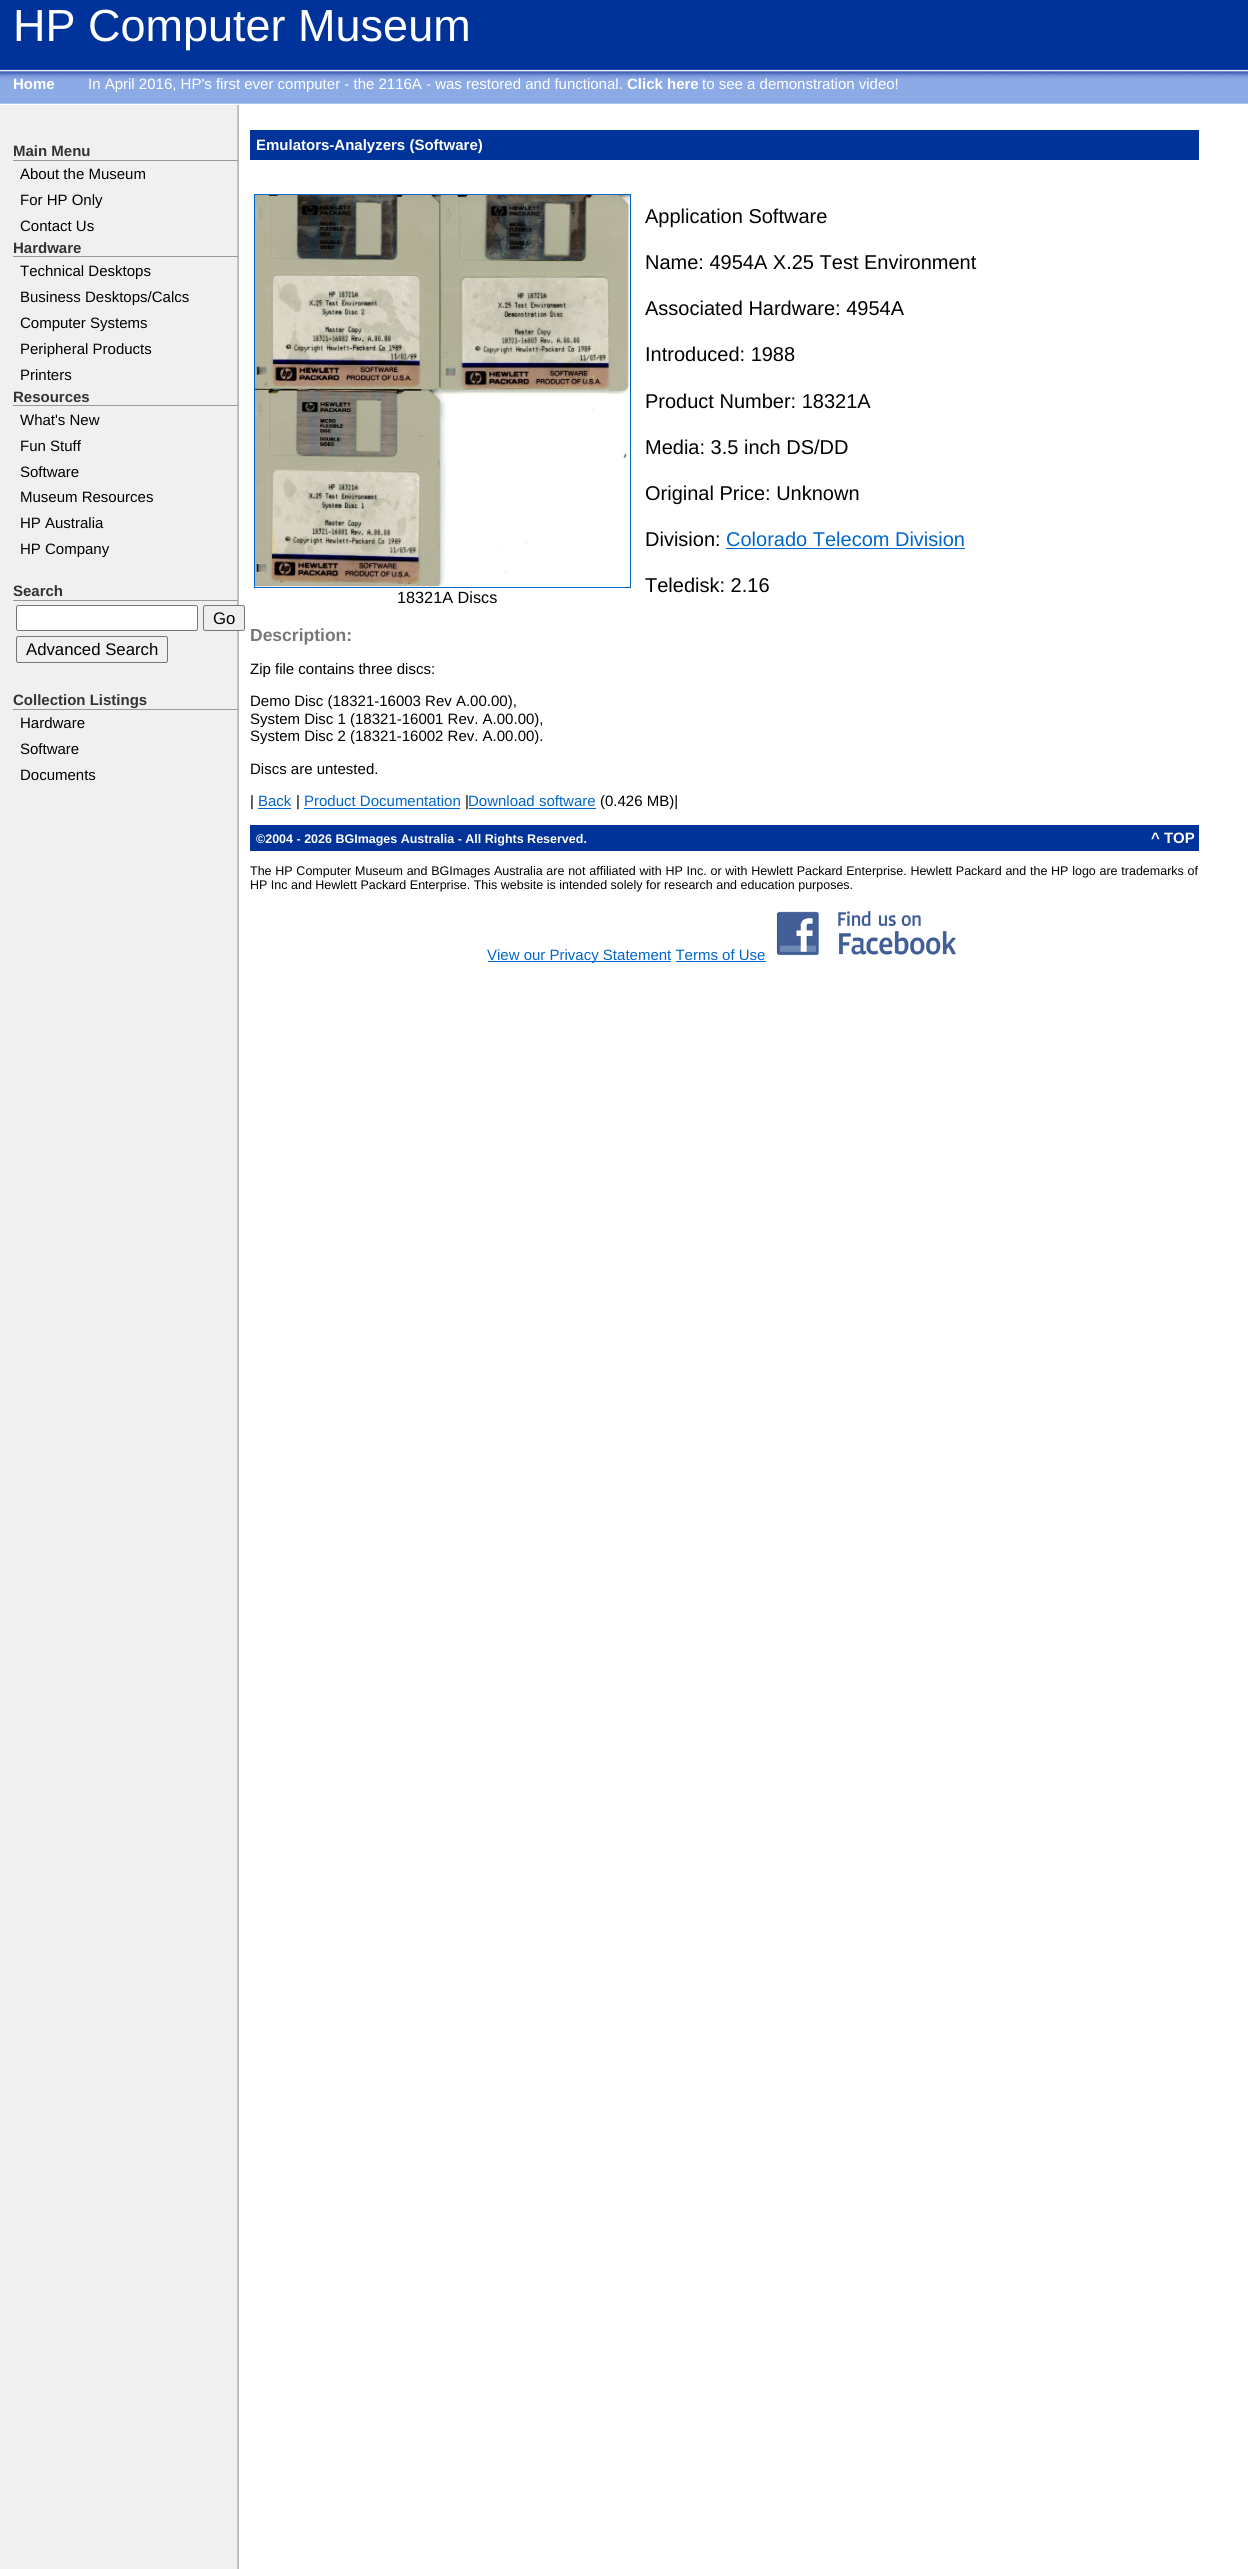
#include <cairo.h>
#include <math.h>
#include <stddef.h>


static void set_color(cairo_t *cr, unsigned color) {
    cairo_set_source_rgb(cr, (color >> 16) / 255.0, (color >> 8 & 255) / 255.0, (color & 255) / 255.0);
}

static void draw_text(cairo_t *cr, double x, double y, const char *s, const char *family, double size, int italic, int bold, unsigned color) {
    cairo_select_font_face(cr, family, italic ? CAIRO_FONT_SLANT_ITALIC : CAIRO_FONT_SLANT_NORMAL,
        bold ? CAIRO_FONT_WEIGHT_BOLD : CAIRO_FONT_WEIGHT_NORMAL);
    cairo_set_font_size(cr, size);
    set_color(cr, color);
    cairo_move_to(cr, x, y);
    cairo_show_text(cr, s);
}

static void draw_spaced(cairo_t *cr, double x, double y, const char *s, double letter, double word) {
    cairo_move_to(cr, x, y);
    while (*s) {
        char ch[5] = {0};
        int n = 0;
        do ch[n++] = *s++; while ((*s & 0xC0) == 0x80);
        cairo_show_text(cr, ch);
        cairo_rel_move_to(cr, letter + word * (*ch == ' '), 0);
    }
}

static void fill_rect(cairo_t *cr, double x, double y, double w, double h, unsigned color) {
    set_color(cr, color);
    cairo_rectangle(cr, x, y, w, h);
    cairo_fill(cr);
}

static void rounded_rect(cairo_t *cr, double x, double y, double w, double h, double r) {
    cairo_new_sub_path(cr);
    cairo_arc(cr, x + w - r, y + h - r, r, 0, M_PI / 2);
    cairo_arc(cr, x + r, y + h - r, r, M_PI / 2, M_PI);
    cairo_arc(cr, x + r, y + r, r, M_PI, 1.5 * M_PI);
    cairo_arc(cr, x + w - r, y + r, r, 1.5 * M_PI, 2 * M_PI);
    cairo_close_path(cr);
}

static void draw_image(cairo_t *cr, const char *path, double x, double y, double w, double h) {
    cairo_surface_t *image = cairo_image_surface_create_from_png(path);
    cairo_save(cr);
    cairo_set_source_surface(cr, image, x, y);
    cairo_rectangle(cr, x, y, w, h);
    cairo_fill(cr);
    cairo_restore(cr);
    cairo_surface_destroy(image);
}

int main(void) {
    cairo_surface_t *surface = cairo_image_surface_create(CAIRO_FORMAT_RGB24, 1248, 2569);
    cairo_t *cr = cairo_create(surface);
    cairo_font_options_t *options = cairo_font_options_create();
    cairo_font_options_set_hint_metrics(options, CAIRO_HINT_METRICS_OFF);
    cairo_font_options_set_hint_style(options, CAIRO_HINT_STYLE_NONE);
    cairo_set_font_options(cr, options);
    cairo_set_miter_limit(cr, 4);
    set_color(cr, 0xFFFFFF);
    cairo_paint(cr);
    draw_image(cr, "assets/img1.png", 0, 105, 239, 2464);
    draw_image(cr, "assets/img2.png", 0, 0, 1248, 105);
    draw_text(cr, 13, 41, "HP Computer Museum", "Liberation Sans", 45, 0, 0, 0xFFFFFF);
    draw_text(cr, 13, 89, "Home", "Liberation Sans", 15, 0, 1, 0xFFFFFF);
    draw_text(cr, 88, 89, "In April 2016, HP's first ever computer - the 2116A - was restored and functional.", "Liberation Sans", 15, 0, 0, 0xFFFFFF);
    draw_text(cr, 627, 89, "Click here", "Liberation Sans", 15, 0, 1, 0xFFFFFF);
    draw_text(cr, 702, 89, "to see a demonstration video!", "Liberation Sans", 15, 0, 0, 0xFFFFFF);
    fill_rect(cr, 13, 160, 225, 1, 0x999999);
    draw_text(cr, 13, 156, "Main Menu", "Liberation Sans", 15, 0, 1, 0x333333);
    draw_text(cr, 20, 179, "About the Museum", "Liberation Sans", 15, 0, 0, 0x000000);
    draw_text(cr, 20, 205, "For HP Only", "Liberation Sans", 15, 0, 0, 0x000000);
    draw_text(cr, 20, 231, "Contact Us", "Liberation Sans", 15, 0, 0, 0x000000);
    fill_rect(cr, 13, 256, 225, 1, 0x999999);
    draw_text(cr, 13, 253, "Hardware", "Liberation Sans", 15, 0, 1, 0x333333);
    draw_text(cr, 20, 276, "Technical Desktops", "Liberation Sans", 15, 0, 0, 0x000000);
    draw_text(cr, 20, 302, "Business Desktops/Calcs", "Liberation Sans", 15, 0, 0, 0x000000);
    draw_text(cr, 20, 328, "Computer Systems", "Liberation Sans", 15, 0, 0, 0x000000);
    draw_text(cr, 20, 354, "Peripheral Products", "Liberation Sans", 15, 0, 0, 0x000000);
    draw_text(cr, 20, 380, "Printers", "Liberation Sans", 15, 0, 0, 0x000000);
    fill_rect(cr, 13, 405, 225, 1, 0x999999);
    draw_text(cr, 13, 402, "Resources", "Liberation Sans", 15, 0, 1, 0x333333);
    draw_text(cr, 20, 425, "What's New", "Liberation Sans", 15, 0, 0, 0x000000);
    draw_text(cr, 20, 451, "Fun Stuff", "Liberation Sans", 15, 0, 0, 0x000000);
    draw_text(cr, 20, 477, "Software", "Liberation Sans", 15, 0, 0, 0x000000);
    draw_text(cr, 20, 502, "Museum Resources", "Liberation Sans", 15, 0, 0, 0x000000);
    draw_text(cr, 20, 528, "HP Australia", "Liberation Sans", 15, 0, 0, 0x000000);
    draw_text(cr, 20, 554, "HP Company", "Liberation Sans", 15, 0, 0, 0x000000);
    fill_rect(cr, 13, 600, 225, 1, 0x999999);
    draw_text(cr, 13, 596, "Search", "Liberation Sans", 15, 0, 1, 0x333333);
    set_color(cr, 0xFFFFFF);
    rounded_rect(cr, 16.5, 605.5, 181, 25, 2);
    cairo_fill_preserve(cr);
    set_color(cr, 0x767676);
    cairo_set_line_width(cr, 1);
    cairo_stroke(cr);
    set_color(cr, 0xEFEFEF);
    rounded_rect(cr, 203.5, 605.5, 41, 25, 2);
    cairo_fill_preserve(cr);
    set_color(cr, 0x767676);
    cairo_stroke(cr);
    draw_text(cr, 213, 624, "Go", "Liberation Sans", 16.75, 0, 0, 0x000000);
    rounded_rect(cr, 16.5, 636.5, 151, 26, 2);
    set_color(cr, 0x767676);
    cairo_stroke(cr);
    draw_text(cr, 26, 655, "Advanced Search", "Liberation Sans", 16.75, 0, 0, 0x000000);
    fill_rect(cr, 13, 709, 225, 1, 0x999999);
    draw_text(cr, 13, 705, "Collection Listings", "Liberation Sans", 15, 0, 1, 0x333333);
    draw_text(cr, 20, 728, "Hardware", "Liberation Sans", 15, 0, 0, 0x000000);
    draw_text(cr, 20, 754, "Software", "Liberation Sans", 15, 0, 0, 0x000000);
    draw_text(cr, 20, 780, "Documents", "Liberation Sans", 15, 0, 0, 0x000000);
    fill_rect(cr, 250, 130, 949, 30, 0x003399);
    draw_text(cr, 256, 150, "Emulators-Analyzers (Software)", "Liberation Sans", 15, 0, 1, 0xFFFFFF);
    draw_text(cr, 645, 223, "Application Software", "Liberation Sans", 20, 0, 0, 0x000000);
    draw_text(cr, 645, 269, "Name: 4954A X.25 Test Environment", "Liberation Sans", 20, 0, 0, 0x000000);
    draw_text(cr, 645, 315, "Associated Hardware: 4954A", "Liberation Sans", 20, 0, 0, 0x000000);
    draw_text(cr, 645, 361, "Introduced: 1988", "Liberation Sans", 20, 0, 0, 0x000000);
    draw_text(cr, 645, 408, "Product Number: 18321A", "Liberation Sans", 20, 0, 0, 0x000000);
    draw_text(cr, 645, 454, "Media: 3.5 inch DS/DD", "Liberation Sans", 20, 0, 0, 0x000000);
    draw_text(cr, 645, 500, "Original Price: Unknown", "Liberation Sans", 20, 0, 0, 0x000000);
    draw_text(cr, 645, 546, "Division:", "Liberation Sans", 20, 0, 0, 0x000000);
    draw_text(cr, 726, 546, "Colorado Telecom Division", "Liberation Sans", 20, 0, 0, 0x0066CC);
    fill_rect(cr, 726, 548, 239, 1, 0x0066CC);
    draw_text(cr, 645, 592, "Teledisk: 2.16", "Liberation Sans", 20, 0, 0, 0x000000);
    cairo_rectangle(cr, 254.5, 194.5, 376, 393);
    set_color(cr, 0x0066CC);
    cairo_stroke(cr);
    draw_image(cr, "assets/img3.png", 255, 195, 375, 392);
    draw_text(cr, 397, 603, "18321A Discs", "Liberation Sans", 16.25, 0, 0, 0x000000);
    draw_text(cr, 250, 641, "Description:", "Liberation Sans", 17.5, 0, 1, 0x777777);
    draw_text(cr, 250, 674, "Zip file contains three discs:", "Liberation Sans", 15, 0, 0, 0x000000);
    draw_text(cr, 250, 706, "Demo Disc (18321-16003 Rev A.00.00),", "Liberation Sans", 15, 0, 0, 0x000000);
    draw_text(cr, 250, 724, "System Disc 1 (18321-16001 Rev. A.00.00),", "Liberation Sans", 15, 0, 0, 0x000000);
    draw_text(cr, 250, 741, "System Disc 2 (18321-16002 Rev. A.00.00).", "Liberation Sans", 15, 0, 0, 0x000000);
    draw_text(cr, 250, 774, "Discs are untested.", "Liberation Sans", 15, 0, 0, 0x000000);
    draw_text(cr, 250, 806, "|", "Liberation Sans", 15, 0, 0, 0x000000);
    draw_text(cr, 258, 806, "Back", "Liberation Sans", 15, 0, 0, 0x0066CC);
    fill_rect(cr, 258, 808, 33, 1, 0x0066CC);
    draw_text(cr, 296, 806, "|", "Liberation Sans", 15, 0, 0, 0x000000);
    draw_text(cr, 304, 806, "Product Documentation", "Liberation Sans", 15, 0, 0, 0x0066CC);
    fill_rect(cr, 304, 808, 156, 1, 0x0066CC);
    draw_text(cr, 465, 806, "|", "Liberation Sans", 15, 0, 0, 0x000000);
    draw_text(cr, 468, 806, "Download software", "Liberation Sans", 15, 0, 0, 0x0066CC);
    fill_rect(cr, 469, 808, 127, 1, 0x0066CC);
    draw_text(cr, 600, 806, "(0.426 MB)|", "Liberation Sans", 15, 0, 0, 0x000000);
    fill_rect(cr, 250, 825, 949, 26, 0x003399);
    draw_text(cr, 256, 843, "©2004 - 2026 BGImages Australia - All Rights Reserved.", "Liberation Sans", 12.5, 0, 1, 0xFFFFFF);
    draw_text(cr, 1151, 843, "^ TOP", "Liberation Sans", 15, 0, 1, 0xFFFFFF);
    cairo_select_font_face(cr, "Liberation Sans", CAIRO_FONT_SLANT_NORMAL, CAIRO_FONT_WEIGHT_NORMAL);
    cairo_set_font_size(cr, 12.5);
    set_color(cr, 0x000000);
    draw_spaced(cr, 250, 875, "The HP Computer Museum and BGImages Australia are not affiliated with HP Inc. or with Hewlett Packard Enterprise. Hewlett Packard and the HP logo are trademarks of", 0, 0.25);
    draw_text(cr, 250, 889, "HP Inc and Hewlett Packard Enterprise. This website is intended solely for research and education purposes.", "Liberation Sans", 12.5, 0, 0, 0x000000);
    fill_rect(cr, 488, 961, 183, 1, 0x0066CC);
    draw_text(cr, 487, 960, "View our Privacy Statement Terms of Use", "Liberation Sans", 15, 0, 0, 0x0066CC);
    draw_image(cr, "assets/img4.png", 776, 910, 180, 46);
    fill_rect(cr, 676, 961, 90, 1, 0x0066CC);
    cairo_surface_write_to_png(surface, "output.png");
    cairo_font_options_destroy(options);
    cairo_destroy(cr);
    cairo_surface_destroy(surface);
    return 0;
}
